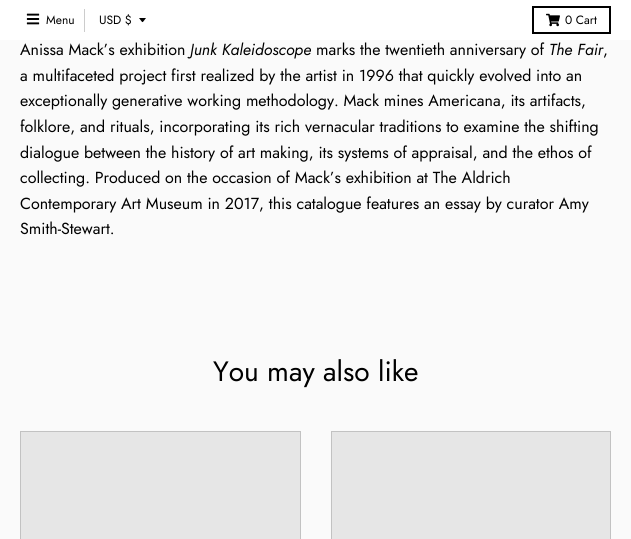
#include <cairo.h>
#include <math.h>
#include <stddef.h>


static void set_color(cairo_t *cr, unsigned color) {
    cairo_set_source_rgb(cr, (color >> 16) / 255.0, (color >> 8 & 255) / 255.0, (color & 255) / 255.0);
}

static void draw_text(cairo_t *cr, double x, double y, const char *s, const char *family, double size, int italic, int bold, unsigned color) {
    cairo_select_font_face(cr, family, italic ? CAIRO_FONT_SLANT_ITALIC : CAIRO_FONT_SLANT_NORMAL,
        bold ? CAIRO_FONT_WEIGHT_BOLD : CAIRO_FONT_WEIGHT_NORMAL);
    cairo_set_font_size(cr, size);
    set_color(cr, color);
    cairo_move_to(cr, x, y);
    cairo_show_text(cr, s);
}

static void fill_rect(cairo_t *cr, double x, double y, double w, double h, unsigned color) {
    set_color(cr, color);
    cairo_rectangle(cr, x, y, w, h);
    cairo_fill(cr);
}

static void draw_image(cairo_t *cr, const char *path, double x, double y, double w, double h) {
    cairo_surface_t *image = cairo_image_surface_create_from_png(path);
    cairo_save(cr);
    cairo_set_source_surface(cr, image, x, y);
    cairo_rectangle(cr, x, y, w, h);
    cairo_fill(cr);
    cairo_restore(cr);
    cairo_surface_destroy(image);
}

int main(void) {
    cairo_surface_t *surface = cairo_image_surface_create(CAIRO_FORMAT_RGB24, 631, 539);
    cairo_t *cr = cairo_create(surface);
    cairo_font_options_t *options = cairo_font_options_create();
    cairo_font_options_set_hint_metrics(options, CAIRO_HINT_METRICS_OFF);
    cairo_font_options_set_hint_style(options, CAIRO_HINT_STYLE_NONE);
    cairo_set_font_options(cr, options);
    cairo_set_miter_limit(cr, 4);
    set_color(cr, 0xFAFAFA);
    cairo_paint(cr);
    fill_rect(cr, 0, 0, 631, 40, 0xFFFFFF);
    draw_image(cr, "assets/img1.png", 26, 13, 14, 12);
    draw_text(cr, 46, 24, "Menu", "Jost", 12, 0, 0, 0x000000);
    fill_rect(cr, 84, 9, 1, 23, 0xCCCCCC);
    set_color(cr, 0x000000);
    cairo_new_path(cr);
    cairo_move_to(cr, 139, 18);
    cairo_curve_to(cr, 143.5, 23.5, 141.5, 23.5, 146, 18);
    cairo_close_path(cr);
    cairo_fill(cr);
    draw_text(cr, 99, 24, "USD $", "Jost", 12, 0, 0, 0x000000);
    cairo_rectangle(cr, 533, 7, 77, 26);
    cairo_stroke(cr);
    draw_image(cr, "assets/img2.png", 546, 13, 14, 14);
    draw_text(cr, 565, 24, "0 Cart", "Jost", 12, 0, 0, 0x000000);
    draw_text(cr, 20, 55, "Anissa Mack’s exhibition", "Jost", 16, 0, 0, 0x000000);
    draw_text(cr, 190, 55, "Junk Kaleidoscope", "Jost", 16, 1, 0, 0x000000);
    draw_text(cr, 316, 55, "marks the twentieth anniversary of", "Jost", 16, 0, 0, 0x000000);
    draw_text(cr, 549, 55, "The Fair", "Jost", 16, 1, 0, 0x000000);
    draw_text(cr, 603, 55, ",", "Jost", 16, 0, 0, 0x000000);
    draw_text(cr, 20, 81, "a multifaceted project first realized by the artist in 1996 that quickly evolved into an", "Jost", 16, 0, 0, 0x000000);
    draw_text(cr, 20, 106, "exceptionally generative working methodology. Mack mines Americana, its artifacts,", "Jost", 16, 0, 0, 0x000000);
    draw_text(cr, 20, 132, "folklore, and rituals, incorporating its rich vernacular traditions to examine the shifting", "Jost", 16, 0, 0, 0x000000);
    draw_text(cr, 20, 158, "dialogue between the history of art making, its systems of appraisal, and the ethos of", "Jost", 16, 0, 0, 0x000000);
    draw_text(cr, 20, 183, "collecting. Produced on the occasion of Mack’s exhibition at The Aldrich", "Jost", 16, 0, 0, 0x000000);
    draw_text(cr, 20, 209, "Contemporary Art Museum in 2017, this catalogue features an essay by curator Amy", "Jost", 16, 0, 0, 0x000000);
    draw_text(cr, 20, 234, "Smith-Stewart.", "Jost", 16, 0, 0, 0x000000);
    draw_text(cr, 213, 381, "You may also like", "Jost", 28, 0, 0, 0x000000);
    set_color(cr, 0xE6E6E6);
    cairo_rectangle(cr, 20.5, 431.5, 280, 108);
    cairo_fill_preserve(cr);
    set_color(cr, 0xC2C2C2);
    cairo_set_line_width(cr, 1);
    cairo_stroke(cr);
    set_color(cr, 0xE6E6E6);
    cairo_rectangle(cr, 331.5, 431.5, 279, 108);
    cairo_fill_preserve(cr);
    set_color(cr, 0xC2C2C2);
    cairo_stroke(cr);
    cairo_surface_write_to_png(surface, "output.png");
    cairo_font_options_destroy(options);
    cairo_destroy(cr);
    cairo_surface_destroy(surface);
    return 0;
}
